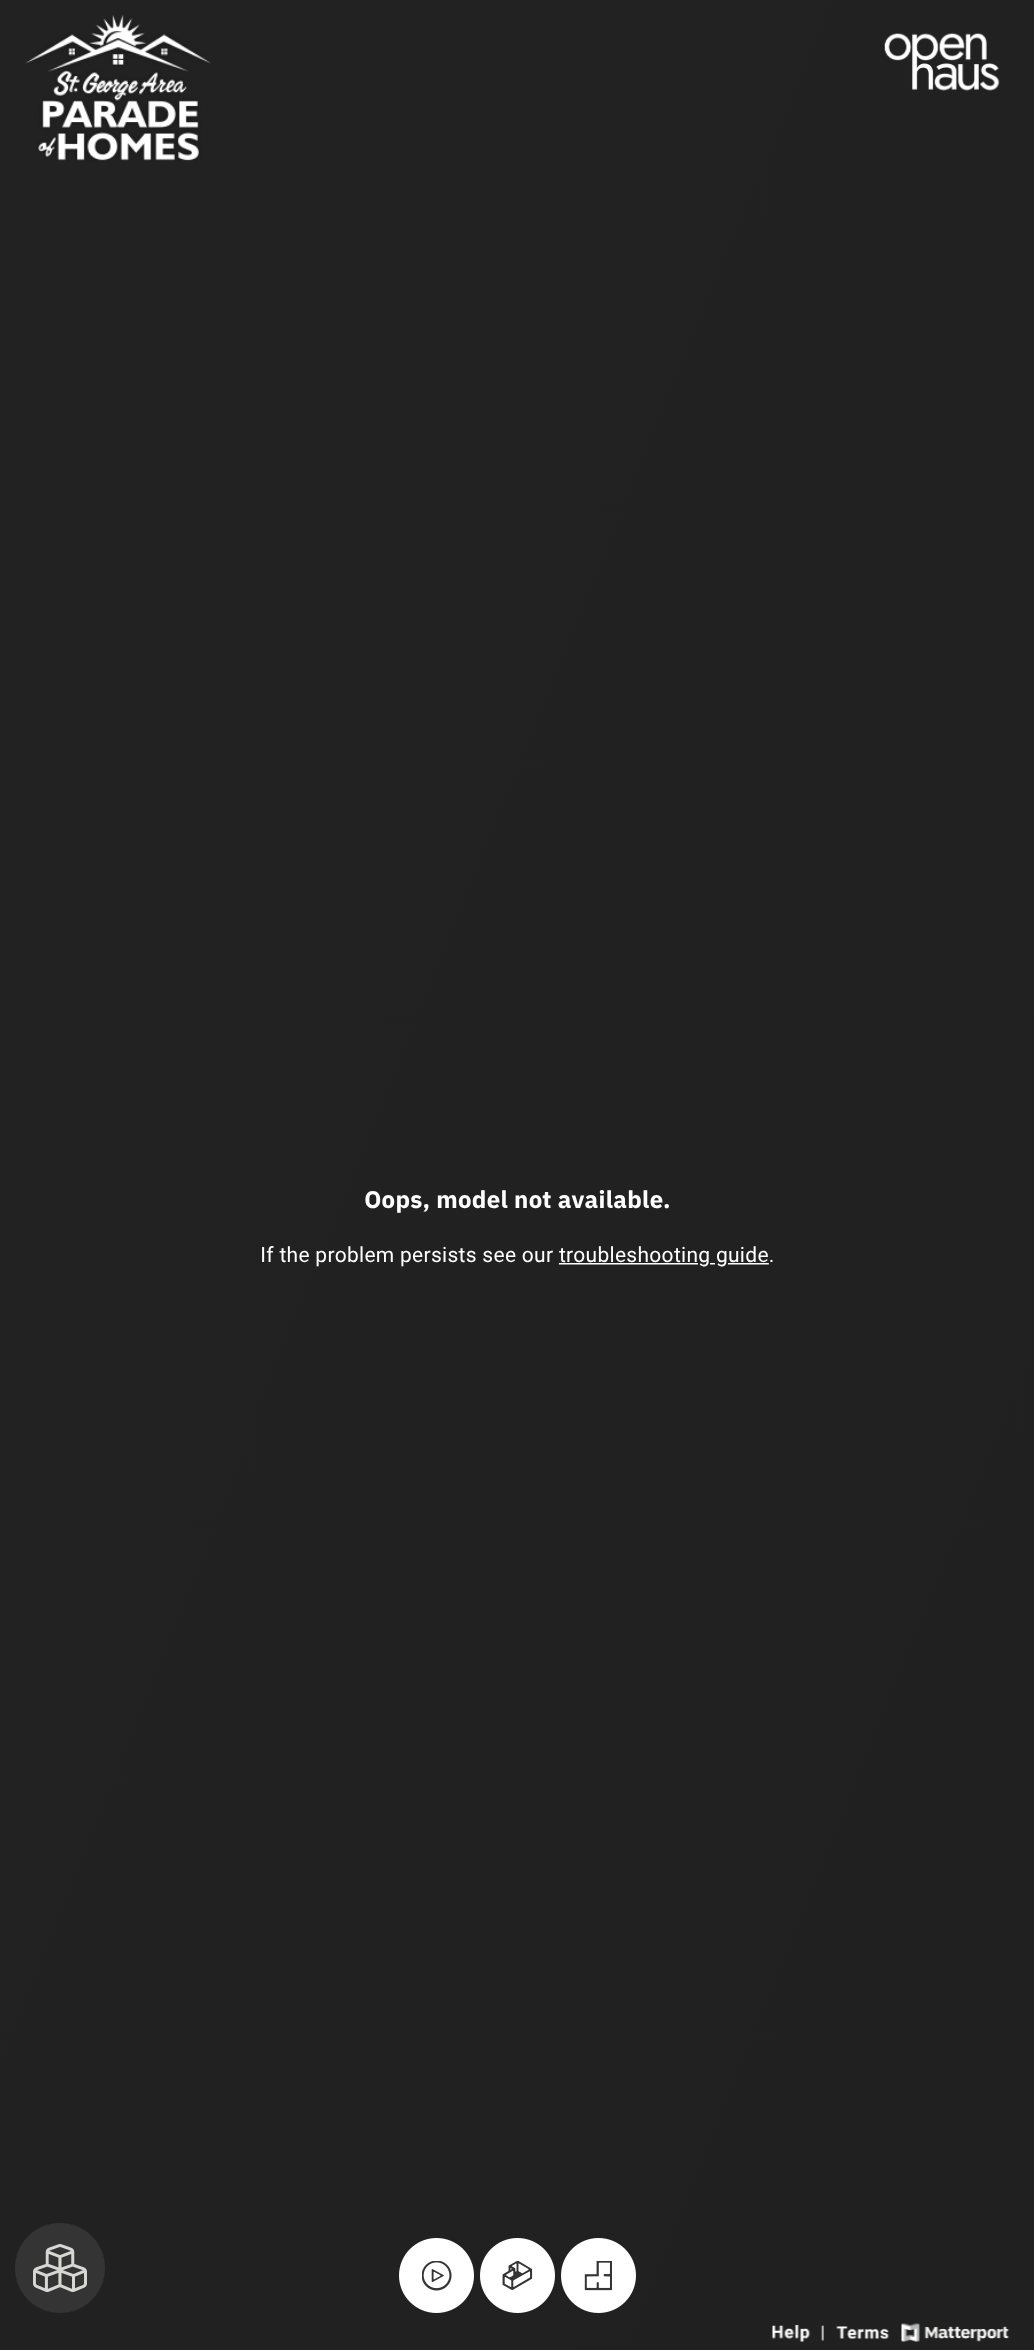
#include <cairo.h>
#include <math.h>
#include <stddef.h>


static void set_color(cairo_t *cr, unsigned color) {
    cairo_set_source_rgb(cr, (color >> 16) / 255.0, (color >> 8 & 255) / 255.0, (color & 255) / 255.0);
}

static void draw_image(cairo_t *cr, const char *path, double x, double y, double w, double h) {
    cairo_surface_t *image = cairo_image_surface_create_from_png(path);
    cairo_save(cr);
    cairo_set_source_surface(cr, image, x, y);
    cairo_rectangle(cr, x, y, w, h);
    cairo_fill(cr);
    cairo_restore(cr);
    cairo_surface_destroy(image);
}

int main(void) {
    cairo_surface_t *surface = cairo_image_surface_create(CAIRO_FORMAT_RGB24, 1034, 2350);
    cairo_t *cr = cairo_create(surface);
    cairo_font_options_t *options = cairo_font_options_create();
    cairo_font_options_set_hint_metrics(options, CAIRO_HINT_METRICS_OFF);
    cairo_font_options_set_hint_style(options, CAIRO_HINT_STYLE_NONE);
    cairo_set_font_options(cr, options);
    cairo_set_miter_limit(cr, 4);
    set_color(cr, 0xFFFFFF);
    cairo_paint(cr);
    draw_image(cr, "assets/img1.png", 0, 0, 1034, 2350);
    draw_image(cr, "assets/img2.png", 25, 15, 186, 146);
    draw_image(cr, "assets/img3.png", 884, 33, 116, 58);
    set_color(cr, 0x343434);
    cairo_arc(cr, 60, 2268, 45, 0, 2 * M_PI);
    cairo_fill(cr);
    draw_image(cr, "assets/img4.png", 33, 2244, 54, 48);
    set_color(cr, 0xFFFFFF);
    cairo_arc(cr, 436.5, 2275.5, 37.5, 0, 2 * M_PI);
    cairo_fill(cr);
    draw_image(cr, "assets/img5.png", 422, 2261, 30, 30);
    cairo_arc(cr, 517.5, 2275.5, 37.5, 0, 2 * M_PI);
    cairo_fill(cr);
    draw_image(cr, "assets/img6.png", 502, 2261, 31, 30);
    cairo_arc(cr, 598.5, 2275.5, 37.5, 0, 2 * M_PI);
    cairo_fill(cr);
    draw_image(cr, "assets/img7.png", 584, 2261, 28, 30);
    draw_image(cr, "assets/img8.png", 772, 2325, 52, 17);
    draw_image(cr, "assets/img9.png", 836, 2326, 53, 13);
    draw_image(cr, "assets/img10.png", 901, 2323, 108, 19);
    cairo_surface_write_to_png(surface, "output.png");
    cairo_font_options_destroy(options);
    cairo_destroy(cr);
    cairo_surface_destroy(surface);
    return 0;
}
